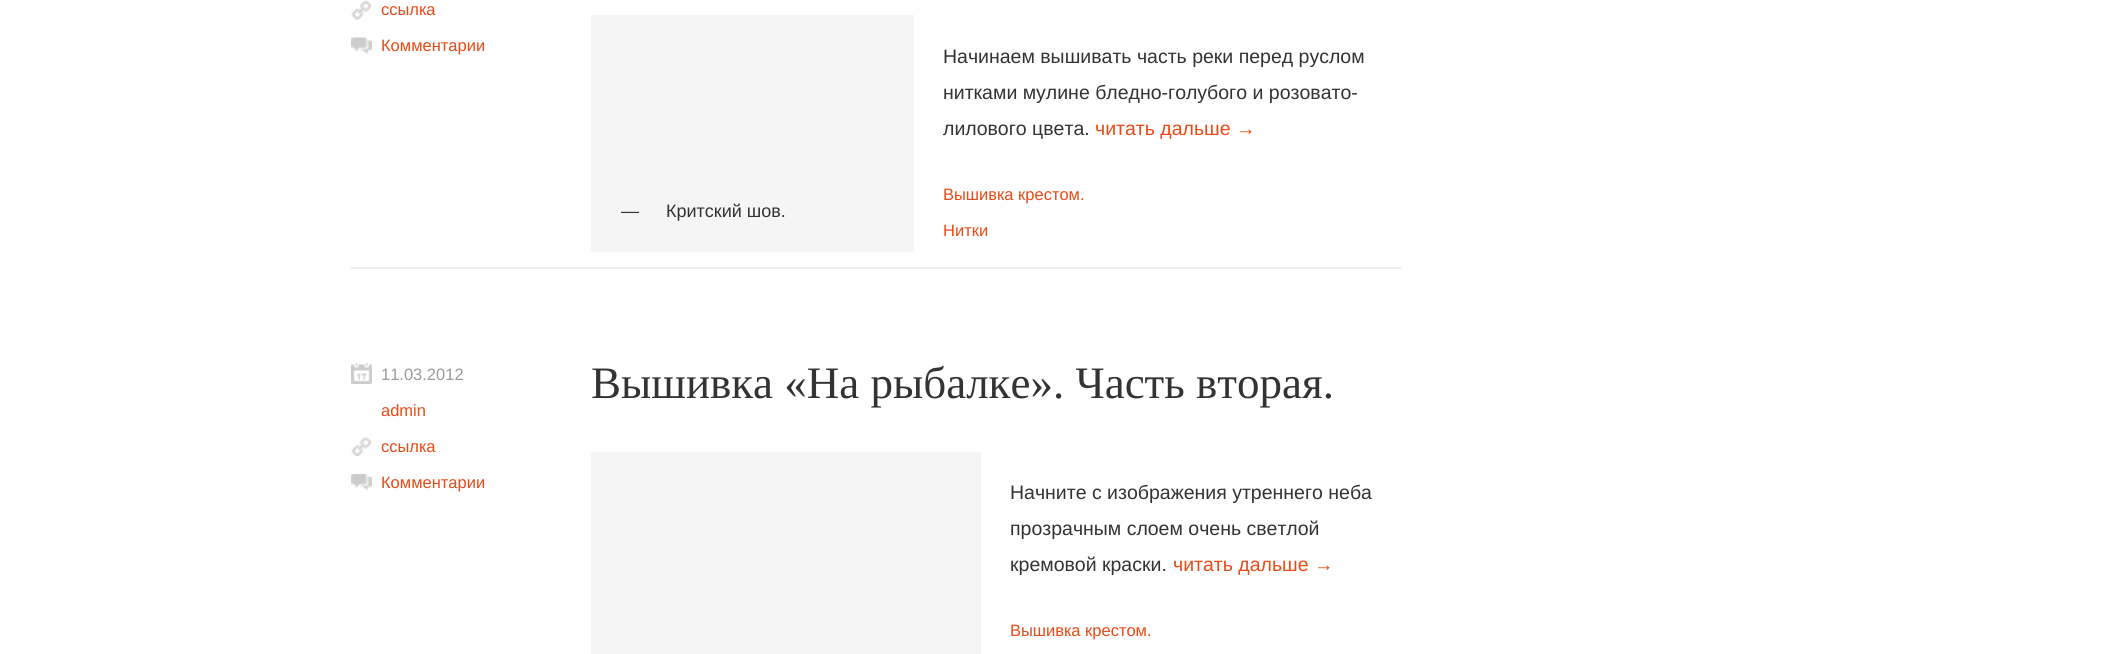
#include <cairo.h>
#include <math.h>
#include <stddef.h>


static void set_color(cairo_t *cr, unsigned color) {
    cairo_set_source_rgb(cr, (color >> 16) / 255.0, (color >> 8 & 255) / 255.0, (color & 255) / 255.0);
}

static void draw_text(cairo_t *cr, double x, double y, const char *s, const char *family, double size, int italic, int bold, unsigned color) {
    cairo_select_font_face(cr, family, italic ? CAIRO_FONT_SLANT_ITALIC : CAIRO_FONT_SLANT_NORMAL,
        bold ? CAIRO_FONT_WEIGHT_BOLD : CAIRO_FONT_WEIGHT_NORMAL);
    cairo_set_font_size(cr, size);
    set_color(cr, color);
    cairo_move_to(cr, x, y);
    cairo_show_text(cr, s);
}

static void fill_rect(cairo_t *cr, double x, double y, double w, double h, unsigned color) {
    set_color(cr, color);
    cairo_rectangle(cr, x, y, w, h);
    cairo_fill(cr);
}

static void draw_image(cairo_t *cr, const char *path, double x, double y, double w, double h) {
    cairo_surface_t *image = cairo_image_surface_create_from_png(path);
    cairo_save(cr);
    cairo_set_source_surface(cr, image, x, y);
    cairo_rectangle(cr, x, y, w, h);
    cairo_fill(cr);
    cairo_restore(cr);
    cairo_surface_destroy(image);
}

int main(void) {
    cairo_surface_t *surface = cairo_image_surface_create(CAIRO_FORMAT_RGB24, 2112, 654);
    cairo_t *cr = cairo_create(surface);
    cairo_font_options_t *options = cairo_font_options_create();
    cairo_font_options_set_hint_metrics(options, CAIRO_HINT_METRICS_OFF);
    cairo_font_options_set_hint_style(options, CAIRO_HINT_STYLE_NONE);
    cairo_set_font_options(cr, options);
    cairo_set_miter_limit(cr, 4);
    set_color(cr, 0xFFFFFF);
    cairo_paint(cr);
    fill_rect(cr, 351, 267, 1050, 2, 0xEEEEEE);
    draw_image(cr, "assets/img1.png", 351, 0, 21, 20);
    draw_text(cr, 381, 15, "ссылка", "Liberation Sans", 16.5, 0, 0, 0xEA4A16);
    draw_image(cr, "assets/img2.png", 351, 37, 21, 17);
    draw_text(cr, 381, 51, "Комментарии", "Liberation Sans", 16.5, 0, 0, 0xEA4A16);
    draw_text(cr, 943, 63, "Начинаем вышивать часть реки перед руслом", "Liberation Sans", 19.5, 0, 0, 0x333333);
    draw_text(cr, 943, 99, "нитками мулине бледно-голубого и розовато-", "Liberation Sans", 19.5, 0, 0, 0x333333);
    draw_text(cr, 943, 135, "лилового цвета.", "Liberation Sans", 19.5, 0, 0, 0x333333);
    draw_text(cr, 1095, 135, "читать дальше →", "Liberation Sans", 19.5, 0, 0, 0xEA4A16);
    fill_rect(cr, 591, 15, 323, 237, 0xF5F5F5);
    draw_text(cr, 621, 217, "—", "Liberation Sans", 18, 0, 0, 0x333333);
    draw_text(cr, 666, 217, "Критский шов.", "Liberation Sans", 18, 0, 0, 0x333333);
    draw_text(cr, 943, 200, "Вышивка крестом.", "Liberation Sans", 16.5, 0, 0, 0xEA4A16);
    draw_text(cr, 943, 236, "Нитки", "Liberation Sans", 16.5, 0, 0, 0xEA4A16);
    draw_image(cr, "assets/img3.png", 351, 363, 21, 21);
    draw_text(cr, 381, 380, "11.03.2012", "Liberation Sans", 16.5, 0, 0, 0x999999);
    draw_text(cr, 381, 416, "admin", "Liberation Sans", 16.5, 0, 0, 0xEA4A16);
    draw_image(cr, "assets/img4.png", 351, 436, 21, 20);
    draw_text(cr, 381, 452, "ссылка", "Liberation Sans", 16.5, 0, 0, 0xEA4A16);
    draw_image(cr, "assets/img5.png", 351, 474, 21, 17);
    draw_text(cr, 381, 488, "Комментарии", "Liberation Sans", 16.5, 0, 0, 0xEA4A16);
    draw_text(cr, 591, 398, "Вышивка «На рыбалке». Часть вторая.", "Liberation Serif", 45, 0, 0, 0x333333);
    fill_rect(cr, 591, 452, 390, 202, 0xF5F5F5);
    draw_text(cr, 1010, 499, "Начните с изображения утреннего неба", "Liberation Sans", 19.5, 0, 0, 0x333333);
    draw_text(cr, 1010, 535, "прозрачным слоем очень светлой", "Liberation Sans", 19.5, 0, 0, 0x333333);
    draw_text(cr, 1010, 571, "кремовой краски.", "Liberation Sans", 19.5, 0, 0, 0x333333);
    draw_text(cr, 1173, 571, "читать дальше →", "Liberation Sans", 19.5, 0, 0, 0xEA4A16);
    draw_text(cr, 1010, 636, "Вышивка крестом.", "Liberation Sans", 16.5, 0, 0, 0xEA4A16);
    cairo_surface_write_to_png(surface, "output.png");
    cairo_font_options_destroy(options);
    cairo_destroy(cr);
    cairo_surface_destroy(surface);
    return 0;
}
